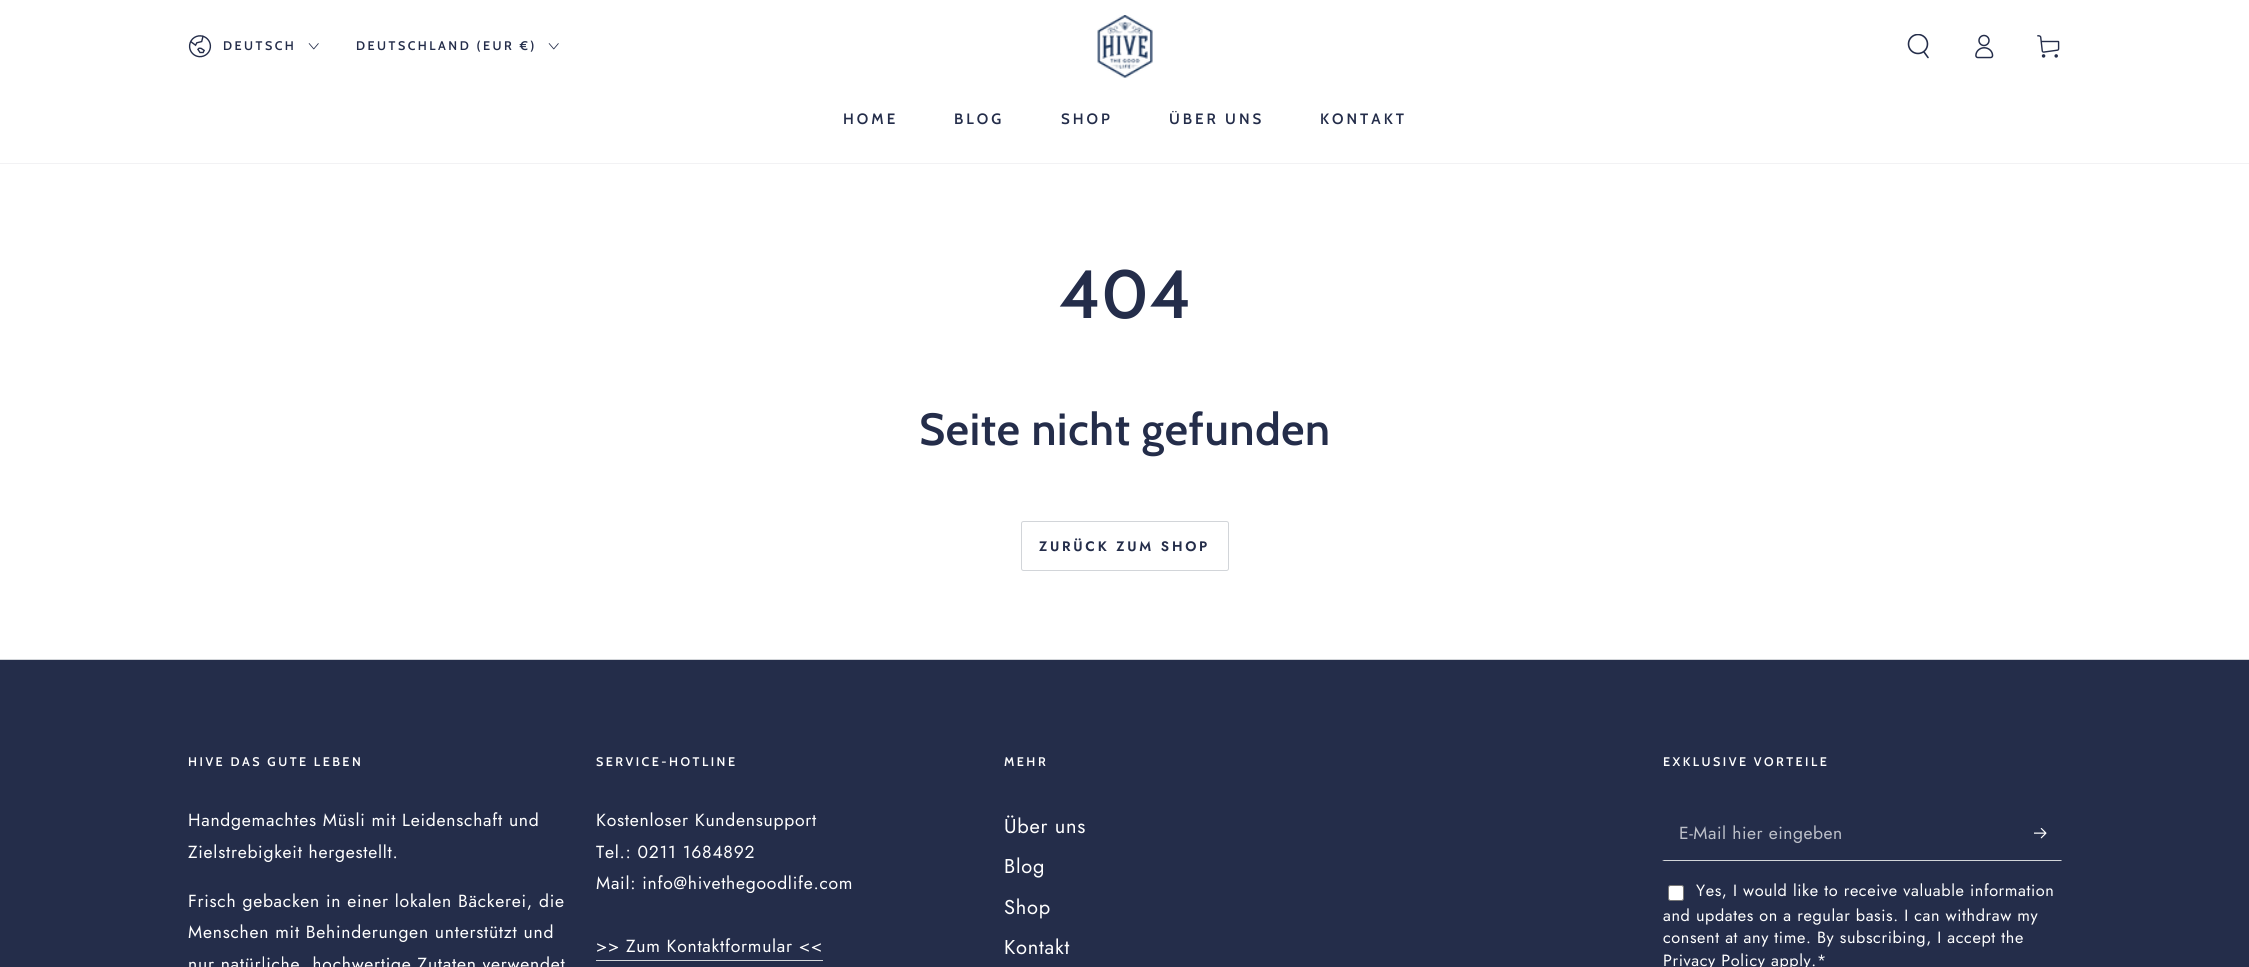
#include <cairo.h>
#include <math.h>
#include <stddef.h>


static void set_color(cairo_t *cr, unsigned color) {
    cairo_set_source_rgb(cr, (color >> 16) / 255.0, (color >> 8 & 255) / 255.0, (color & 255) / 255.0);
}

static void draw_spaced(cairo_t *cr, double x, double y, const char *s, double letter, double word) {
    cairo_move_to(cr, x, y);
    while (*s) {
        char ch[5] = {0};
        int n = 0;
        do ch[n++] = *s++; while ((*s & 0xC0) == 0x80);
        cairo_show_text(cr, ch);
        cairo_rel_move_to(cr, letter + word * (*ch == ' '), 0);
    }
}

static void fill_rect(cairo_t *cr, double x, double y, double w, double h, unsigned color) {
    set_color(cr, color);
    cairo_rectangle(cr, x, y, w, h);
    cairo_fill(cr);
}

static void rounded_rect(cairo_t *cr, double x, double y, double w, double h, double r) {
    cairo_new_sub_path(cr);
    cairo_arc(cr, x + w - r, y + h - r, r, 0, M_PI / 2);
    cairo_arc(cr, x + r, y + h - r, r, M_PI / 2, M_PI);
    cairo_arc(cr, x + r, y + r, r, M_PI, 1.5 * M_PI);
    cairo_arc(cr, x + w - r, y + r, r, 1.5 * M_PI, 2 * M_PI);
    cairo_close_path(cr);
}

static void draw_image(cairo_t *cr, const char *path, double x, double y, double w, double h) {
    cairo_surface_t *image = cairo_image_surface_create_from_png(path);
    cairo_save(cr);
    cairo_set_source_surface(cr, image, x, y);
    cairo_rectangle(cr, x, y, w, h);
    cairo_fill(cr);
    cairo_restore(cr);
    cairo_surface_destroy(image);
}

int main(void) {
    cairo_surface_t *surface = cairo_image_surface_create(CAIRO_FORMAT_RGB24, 2249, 967);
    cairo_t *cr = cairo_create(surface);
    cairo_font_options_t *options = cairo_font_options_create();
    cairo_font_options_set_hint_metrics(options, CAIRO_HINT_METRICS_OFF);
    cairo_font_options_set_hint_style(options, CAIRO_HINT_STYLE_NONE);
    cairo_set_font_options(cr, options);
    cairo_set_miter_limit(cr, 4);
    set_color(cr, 0xFFFFFF);
    cairo_paint(cr);
    fill_rect(cr, 0, 163, 2249, 1, 0xF2F2F4);
    draw_image(cr, "assets/img1.png", 188, 35, 24, 23);
    cairo_select_font_face(cr, "Cabin SemiBold", CAIRO_FONT_SLANT_NORMAL, CAIRO_FONT_WEIGHT_NORMAL);
    cairo_set_font_size(cr, 12.5);
    set_color(cr, 0x242D4A);
    draw_spaced(cr, 223, 50, "DEUTSCH", 2.5, 0);
    draw_image(cr, "assets/img2.png", 308, 43, 11, 7);
    draw_spaced(cr, 356, 50, "DEUTSCHLAND (EUR €)", 2.5, 0);
    draw_image(cr, "assets/img2.png", 548, 43, 11, 7);
    draw_image(cr, "assets/img3.png", 1097, 15, 56, 63);
    cairo_save(cr);
    cairo_rectangle(cr, 1906, 34, 25, 25);
    cairo_clip(cr);
    cairo_arc(cr, 1918, 44, 9.5, 0, 2 * M_PI);
    cairo_set_line_width(cr, 1.6);
    cairo_stroke(cr);
    cairo_restore(cr);
    cairo_new_path(cr);
    cairo_move_to(cr, 1924, 52);
    cairo_line_to(cr, 1928, 57.5);
    cairo_set_line_width(cr, 1.6);
    cairo_set_line_cap(cr, CAIRO_LINE_CAP_ROUND);
    cairo_stroke(cr);
    draw_image(cr, "assets/img4.png", 1975, 34, 19, 25);
    draw_image(cr, "assets/img5.png", 2037, 35, 23, 23);
    cairo_set_font_size(cr, 15);
    draw_spaced(cr, 843, 124, "HOME", 3, 0);
    draw_spaced(cr, 954, 124, "BLOG", 3, 0);
    draw_spaced(cr, 1061, 124, "SHOP", 3, 0);
    draw_spaced(cr, 1169, 124, "ÜBER UNS", 3, 0);
    draw_spaced(cr, 1320, 124, "KONTAKT", 3, 0);
    cairo_set_font_size(cr, 68);
    draw_spaced(cr, 1059, 318, "404", 0.7, 0);
    cairo_set_font_size(cr, 45);
    draw_spaced(cr, 919, 445, "Seite nicht gefunden", 0.7, 0);
    rounded_rect(cr, 1021.5, 521.5, 207, 49, 2);
    set_color(cr, 0xD2D5D9);
    cairo_set_line_width(cr, 1);
    cairo_set_line_cap(cr, CAIRO_LINE_CAP_BUTT);
    cairo_stroke(cr);
    cairo_select_font_face(cr, "Jost SemiBold", CAIRO_FONT_SLANT_NORMAL, CAIRO_FONT_WEIGHT_NORMAL);
    cairo_set_font_size(cr, 13.75);
    set_color(cr, 0x242D4A);
    draw_spaced(cr, 1039, 551, "ZURÜCK ZUM SHOP", 2.75, 0);
    fill_rect(cr, 0, 660, 2249, 307, 0x242D4A);
    fill_rect(cr, 0, 659, 2249, 1, 0xD2D5D9);
    cairo_select_font_face(cr, "Cabin SemiBold", CAIRO_FONT_SLANT_NORMAL, CAIRO_FONT_WEIGHT_NORMAL);
    cairo_set_font_size(cr, 12.5);
    set_color(cr, 0xFFFFFF);
    draw_spaced(cr, 188, 766, "HIVE DAS GUTE LEBEN", 2.5, 0);
    cairo_select_font_face(cr, "Jost", CAIRO_FONT_SLANT_NORMAL, CAIRO_FONT_WEIGHT_NORMAL);
    cairo_set_font_size(cr, 17.5);
    draw_spaced(cr, 188, 826, "Handgemachtes Müsli mit Leidenschaft und", 0.75, 0);
    draw_spaced(cr, 188, 858, "Zielstrebigkeit hergestellt.", 0.75, 0);
    draw_spaced(cr, 188, 907, "Frisch gebacken in einer lokalen Bäckerei, die", 0.75, 0);
    draw_spaced(cr, 188, 938, "Menschen mit Behinderungen unterstützt und", 0.75, 0);
    draw_spaced(cr, 188, 970, "nur natürliche, hochwertige Zutaten verwendet", 0.75, 0);
    cairo_select_font_face(cr, "Cabin SemiBold", CAIRO_FONT_SLANT_NORMAL, CAIRO_FONT_WEIGHT_NORMAL);
    cairo_set_font_size(cr, 12.5);
    draw_spaced(cr, 596, 766, "SERVICE-HOTLINE", 2.5, 0);
    cairo_select_font_face(cr, "Jost", CAIRO_FONT_SLANT_NORMAL, CAIRO_FONT_WEIGHT_NORMAL);
    cairo_set_font_size(cr, 17.5);
    draw_spaced(cr, 596, 826, "Kostenloser Kundensupport", 0.75, 0);
    draw_spaced(cr, 596, 858, "Tel.: 0211 1684892", 0.75, 0);
    draw_spaced(cr, 596, 889, "Mail: info@hivethegoodlife.com", 0.75, 0);
    draw_spaced(cr, 596, 952, ">> Zum Kontaktformular <<", 0.75, 0);
    fill_rect(cr, 596, 960, 227, 1, 0xD2D5D9);
    cairo_select_font_face(cr, "Cabin SemiBold", CAIRO_FONT_SLANT_NORMAL, CAIRO_FONT_WEIGHT_NORMAL);
    cairo_set_font_size(cr, 12.5);
    set_color(cr, 0xFFFFFF);
    draw_spaced(cr, 1004, 766, "MEHR", 2.5, 0);
    cairo_select_font_face(cr, "Jost", CAIRO_FONT_SLANT_NORMAL, CAIRO_FONT_WEIGHT_NORMAL);
    cairo_set_font_size(cr, 20);
    draw_spaced(cr, 1004, 833, "Über uns", 0.75, 0);
    draw_spaced(cr, 1004, 873, "Blog", 0.75, 0);
    draw_spaced(cr, 1004, 914, "Shop", 0.75, 0);
    draw_spaced(cr, 1004, 954, "Kontakt", 0.75, 0);
    cairo_select_font_face(cr, "Cabin SemiBold", CAIRO_FONT_SLANT_NORMAL, CAIRO_FONT_WEIGHT_NORMAL);
    cairo_set_font_size(cr, 12.5);
    draw_spaced(cr, 1663, 766, "EXKLUSIVE VORTEILE", 2.5, 0);
    set_color(cr, 0xD2D5D9);
    cairo_new_path(cr);
    cairo_move_to(cr, 2062, 861);
    cairo_line_to(cr, 1662, 861);
    cairo_line_to(cr, 1664, 860);
    cairo_line_to(cr, 2061, 860);
    cairo_close_path(cr);
    cairo_fill(cr);
    cairo_select_font_face(cr, "Jost", CAIRO_FONT_SLANT_NORMAL, CAIRO_FONT_WEIGHT_NORMAL);
    cairo_set_font_size(cr, 17.5);
    set_color(cr, 0xBDC0C9);
    draw_spaced(cr, 1679, 839, "E-Mail hier eingeben", 0.5, 0);
    draw_image(cr, "assets/img6.png", 2034, 828, 13, 11);
    set_color(cr, 0xFFFFFF);
    rounded_rect(cr, 1668.5, 885.5, 15, 15, 2);
    cairo_fill_preserve(cr);
    set_color(cr, 0x767676);
    cairo_stroke(cr);
    cairo_set_font_size(cr, 16.25);
    set_color(cr, 0xFFFFFF);
    draw_spaced(cr, 1696, 896, "Yes, I would like to receive valuable information", 0.6, 0);
    draw_spaced(cr, 1663, 921, "and updates on a regular basis. I can withdraw my", 0.6, 0);
    draw_spaced(cr, 1663, 943, "consent at any time. By subscribing, I accept the", 0.6, 0);
    draw_spaced(cr, 1663, 966, "Privacy Policy", 0.6, 0);
    draw_spaced(cr, 1771, 966, "apply.*", 0.6, 0);
    cairo_surface_write_to_png(surface, "output.png");
    cairo_font_options_destroy(options);
    cairo_destroy(cr);
    cairo_surface_destroy(surface);
    return 0;
}
